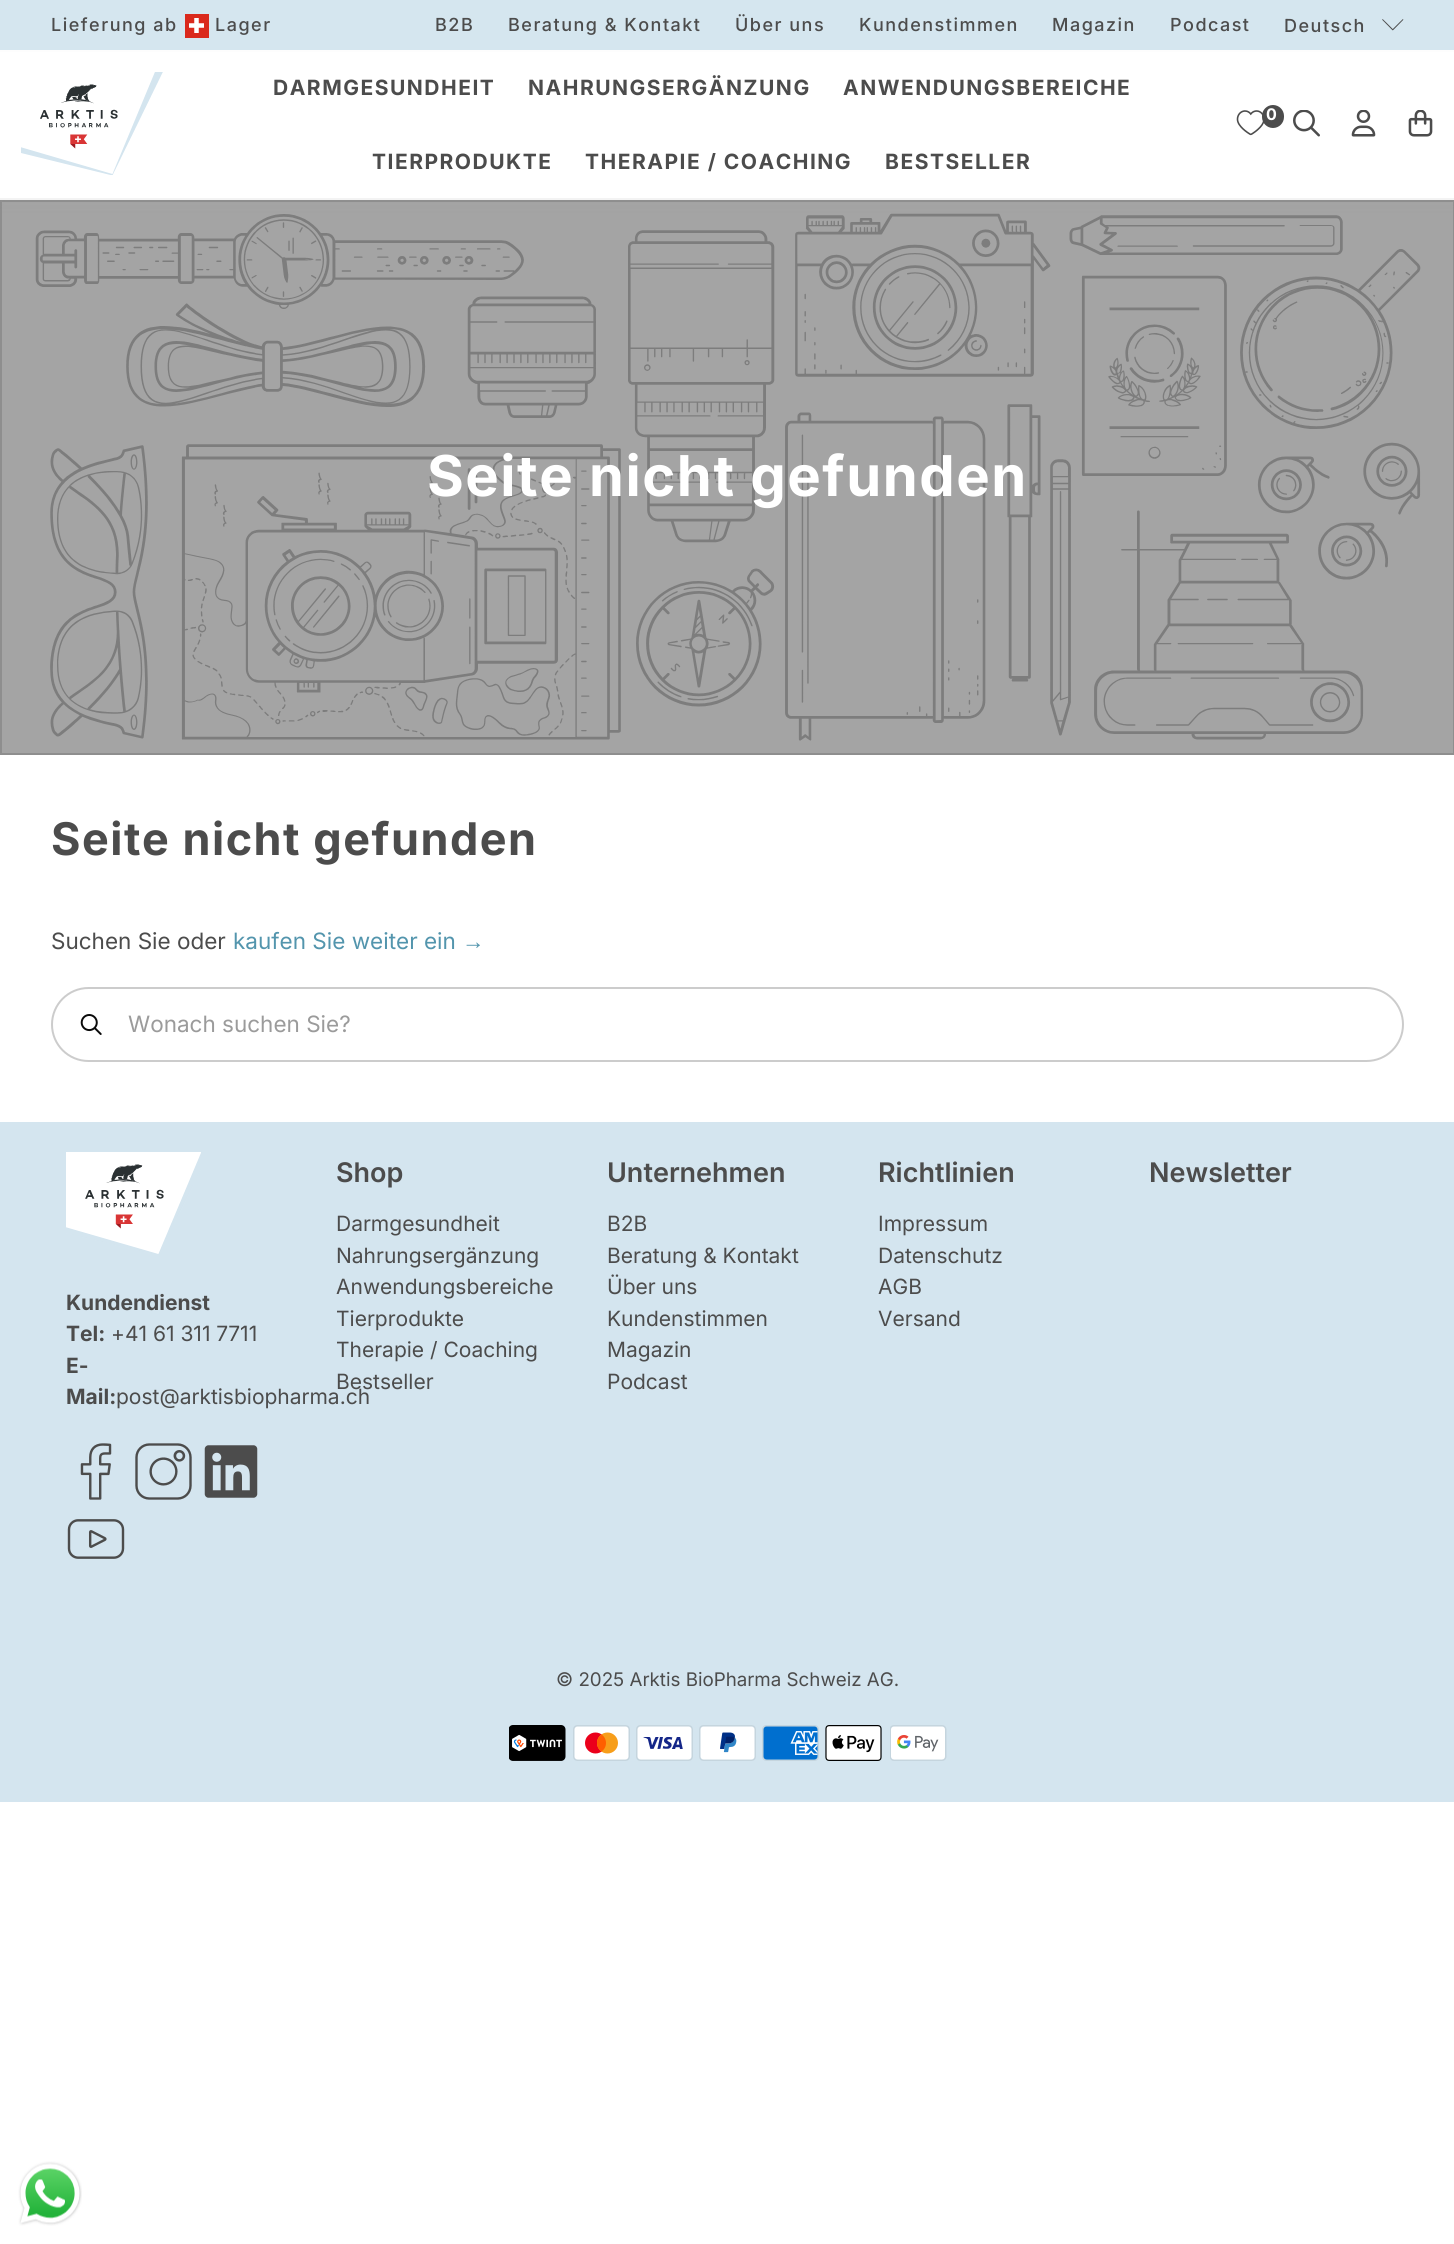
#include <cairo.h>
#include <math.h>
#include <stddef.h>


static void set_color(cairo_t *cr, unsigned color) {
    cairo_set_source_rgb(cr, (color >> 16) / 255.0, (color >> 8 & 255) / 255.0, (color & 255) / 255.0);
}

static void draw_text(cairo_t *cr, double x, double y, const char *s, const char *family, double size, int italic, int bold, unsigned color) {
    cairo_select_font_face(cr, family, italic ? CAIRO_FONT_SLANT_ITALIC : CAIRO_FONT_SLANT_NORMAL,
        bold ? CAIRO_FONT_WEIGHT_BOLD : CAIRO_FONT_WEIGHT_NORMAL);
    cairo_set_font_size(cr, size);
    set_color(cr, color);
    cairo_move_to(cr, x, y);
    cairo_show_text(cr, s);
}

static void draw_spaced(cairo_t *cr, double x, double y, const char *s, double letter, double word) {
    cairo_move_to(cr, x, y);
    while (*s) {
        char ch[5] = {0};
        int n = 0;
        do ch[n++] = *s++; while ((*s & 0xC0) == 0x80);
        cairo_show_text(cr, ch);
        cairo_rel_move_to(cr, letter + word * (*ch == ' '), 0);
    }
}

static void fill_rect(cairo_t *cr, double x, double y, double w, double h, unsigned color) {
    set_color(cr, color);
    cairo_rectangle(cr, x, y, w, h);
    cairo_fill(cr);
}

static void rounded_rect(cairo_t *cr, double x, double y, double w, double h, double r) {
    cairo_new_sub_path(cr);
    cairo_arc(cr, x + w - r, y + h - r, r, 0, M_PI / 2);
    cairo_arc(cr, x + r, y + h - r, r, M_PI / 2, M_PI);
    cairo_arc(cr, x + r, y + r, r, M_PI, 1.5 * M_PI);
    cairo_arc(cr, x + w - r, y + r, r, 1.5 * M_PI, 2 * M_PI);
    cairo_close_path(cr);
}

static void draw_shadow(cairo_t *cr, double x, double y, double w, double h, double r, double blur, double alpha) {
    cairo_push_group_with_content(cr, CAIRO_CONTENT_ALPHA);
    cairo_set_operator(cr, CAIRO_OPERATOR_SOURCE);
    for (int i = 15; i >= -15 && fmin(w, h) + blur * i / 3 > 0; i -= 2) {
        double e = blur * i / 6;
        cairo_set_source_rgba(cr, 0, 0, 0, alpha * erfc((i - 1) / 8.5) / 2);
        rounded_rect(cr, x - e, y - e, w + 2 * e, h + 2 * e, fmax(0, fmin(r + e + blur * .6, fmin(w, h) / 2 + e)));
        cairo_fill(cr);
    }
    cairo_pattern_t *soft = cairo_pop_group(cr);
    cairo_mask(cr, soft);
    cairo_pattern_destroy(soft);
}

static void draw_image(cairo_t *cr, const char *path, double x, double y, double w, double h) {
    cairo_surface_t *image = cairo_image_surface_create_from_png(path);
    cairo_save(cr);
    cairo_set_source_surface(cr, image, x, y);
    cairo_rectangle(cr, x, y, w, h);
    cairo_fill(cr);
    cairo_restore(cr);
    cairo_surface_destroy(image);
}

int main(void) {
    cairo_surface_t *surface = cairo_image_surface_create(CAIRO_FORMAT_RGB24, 1454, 2244);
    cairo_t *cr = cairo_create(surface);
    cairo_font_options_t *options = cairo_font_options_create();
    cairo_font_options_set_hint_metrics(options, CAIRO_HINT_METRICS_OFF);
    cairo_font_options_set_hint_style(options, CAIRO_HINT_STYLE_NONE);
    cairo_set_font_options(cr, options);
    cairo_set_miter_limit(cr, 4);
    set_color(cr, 0xFFFFFF);
    cairo_paint(cr);
    set_color(cr, 0xA4A4A4);
    cairo_rectangle(cr, 1, 201, 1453, 553);
    cairo_fill_preserve(cr);
    set_color(cr, 0x8E8E8E);
    cairo_stroke(cr);
    draw_image(cr, "assets/img8.png", 35, 213, 1386, 528);
    set_color(cr, 0x999999);
    draw_shadow(cr, 0, 56, 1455, 150, 0, 6, 0.1);
    fill_rect(cr, 0, 0, 1454, 50, 0xD5E6EF);
    cairo_select_font_face(cr, "Inter Medium", CAIRO_FONT_SLANT_NORMAL, CAIRO_FONT_WEIGHT_NORMAL);
    cairo_set_font_size(cr, 18);
    set_color(cr, 0x4C4C4C);
    draw_spaced(cr, 51, 31, "Lieferung ab", 1.5, 0);
    draw_image(cr, "assets/img1.png", 185, 14, 24, 24);
    draw_spaced(cr, 215, 31, "Lager", 1.5, 0);
    draw_spaced(cr, 435, 31, "B2B", 1.5, 0);
    draw_spaced(cr, 508, 31, "Beratung & Kontakt", 1.5, 0);
    draw_spaced(cr, 735, 31, "Über uns", 1.5, 0);
    draw_spaced(cr, 859, 31, "Kundenstimmen", 1.5, 0);
    draw_spaced(cr, 1052, 31, "Magazin", 1.5, 0);
    draw_spaced(cr, 1170, 31, "Podcast", 1.5, 0);
    draw_spaced(cr, 1284, 32, "Deutsch", 1.5, 0);
    draw_image(cr, "assets/img2.png", 1382, 19, 22, 12);
    fill_rect(cr, 0, 52, 1454, 146, 0xFFFFFF);
    fill_rect(cr, 0, 198, 1454, 2, 0xF3F3F3);
    draw_image(cr, "assets/img3.png", 21, 72, 142, 103);
    cairo_select_font_face(cr, "Inter", CAIRO_FONT_SLANT_NORMAL, CAIRO_FONT_WEIGHT_BOLD);
    cairo_set_font_size(cr, 21);
    set_color(cr, 0x4C4C4C);
    draw_spaced(cr, 273, 95, "DARMGESUNDHEIT", 1.5, 0);
    draw_spaced(cr, 528, 95, "NAHRUNGSERGÄNZUNG", 1.5, 0);
    draw_spaced(cr, 843, 95, "ANWENDUNGSBEREICHE", 1.5, 0);
    draw_spaced(cr, 372, 169, "TIERPRODUKTE", 1.5, 0);
    draw_spaced(cr, 585, 169, "THERAPIE / COACHING", 1.5, 0);
    draw_spaced(cr, 885, 169, "BESTSELLER", 1.5, 0);
    draw_image(cr, "assets/img4.png", 1236, 110, 28, 26);
    rounded_rect(cr, 1262, 105, 22, 23, 11);
    cairo_fill(cr);
    cairo_set_font_size(cr, 16);
    set_color(cr, 0xFFFFFF);
    draw_spaced(cr, 1266, 120, "0", 1.5, 0);
    draw_image(cr, "assets/img5.png", 1293, 110, 27, 27);
    draw_image(cr, "assets/img6.png", 1351, 110, 25, 27);
    draw_image(cr, "assets/img7.png", 1408, 110, 25, 27);
    cairo_set_font_size(cr, 56.25);
    draw_spaced(cr, 427, 496, "Seite nicht gefunden", 1.5, 0);
    cairo_set_font_size(cr, 45);
    set_color(cr, 0x4C4C4C);
    draw_spaced(cr, 51, 855, "Seite nicht gefunden", 1.5, 0);
    draw_text(cr, 51, 949, "Suchen Sie oder", "Inter", 22.5, 0, 0, 0x4C4C4C);
    draw_text(cr, 233, 949, "kaufen Sie weiter ein", "Inter", 22.5, 0, 0, 0x5395AD);
    draw_text(cr, 462, 949, "→", "Liberation Sans", 22.5, 0, 0, 0x5395AD);
    rounded_rect(cr, 52, 988, 1351, 73, 36.5);
    set_color(cr, 0xCCCCCC);
    cairo_stroke(cr);
    draw_image(cr, "assets/img9.png", 80, 1014, 22, 21);
    draw_text(cr, 128, 1032, "Wonach suchen Sie?", "Inter", 22.5, 0, 0, 0x9B9B9B);
    fill_rect(cr, 0, 1122, 1454, 680, 0xD4E5EF);
    draw_text(cr, 336, 1182, "Shop", "Inter SemiBold", 27, 0, 0, 0x4C4C4C);
    draw_text(cr, 336, 1231, "Darmgesundheit", "Inter", 21, 0, 0, 0x4C4C4C);
    draw_text(cr, 336, 1263, "Nahrungsergänzung", "Inter", 21, 0, 0, 0x4C4C4C);
    draw_text(cr, 336, 1294, "Anwendungsbereiche", "Inter", 21, 0, 0, 0x4C4C4C);
    draw_text(cr, 336, 1326, "Tierprodukte", "Inter", 21, 0, 0, 0x4C4C4C);
    draw_text(cr, 336, 1357, "Therapie / Coaching", "Inter", 21, 0, 0, 0x4C4C4C);
    draw_text(cr, 336, 1389, "Bestseller", "Inter", 21, 0, 0, 0x4C4C4C);
    draw_text(cr, 607, 1182, "Unternehmen", "Inter SemiBold", 27, 0, 0, 0x4C4C4C);
    draw_text(cr, 607, 1231, "B2B", "Inter", 21, 0, 0, 0x4C4C4C);
    draw_text(cr, 607, 1263, "Beratung & Kontakt", "Inter", 21, 0, 0, 0x4C4C4C);
    draw_text(cr, 607, 1294, "Über uns", "Inter", 21, 0, 0, 0x4C4C4C);
    draw_text(cr, 607, 1326, "Kundenstimmen", "Inter", 21, 0, 0, 0x4C4C4C);
    draw_text(cr, 607, 1357, "Magazin", "Inter", 21, 0, 0, 0x4C4C4C);
    draw_text(cr, 607, 1389, "Podcast", "Inter", 21, 0, 0, 0x4C4C4C);
    draw_text(cr, 878, 1182, "Richtlinien", "Inter SemiBold", 27, 0, 0, 0x4C4C4C);
    draw_text(cr, 878, 1231, "Impressum", "Inter", 21, 0, 0, 0x4C4C4C);
    draw_text(cr, 878, 1263, "Datenschutz", "Inter", 21, 0, 0, 0x4C4C4C);
    draw_text(cr, 878, 1294, "AGB", "Inter", 21, 0, 0, 0x4C4C4C);
    draw_text(cr, 878, 1326, "Versand", "Inter", 21, 0, 0, 0x4C4C4C);
    draw_text(cr, 1149, 1182, "Newsletter", "Inter SemiBold", 27, 0, 0, 0x4C4C4C);
    draw_image(cr, "assets/img10.png", 66, 1152, 135, 102);
    draw_text(cr, 66, 1310, "Kundendienst", "Inter", 21, 0, 1, 0x4C4C4C);
    draw_text(cr, 66, 1341, "Tel:", "Inter", 21, 0, 1, 0x4C4C4C);
    draw_text(cr, 111, 1341, "+41 61 311 7711", "Inter", 21, 0, 0, 0x4C4C4C);
    draw_text(cr, 66, 1373, "E-", "Inter", 21, 0, 1, 0x4C4C4C);
    draw_text(cr, 66, 1404, "Mail:", "Inter", 21, 0, 1, 0x4C4C4C);
    draw_text(cr, 116, 1404, "post@arktisbiopharma.ch", "Inter", 21, 0, 0, 0x4C4C4C);
    draw_image(cr, "assets/img11.png", 80, 1443, 32, 57);
    draw_image(cr, "assets/img12.png", 135, 1443, 57, 57);
    draw_image(cr, "assets/img13.png", 204, 1445, 54, 53);
    draw_image(cr, "assets/img14.png", 67, 1519, 58, 40);
    draw_text(cr, 556, 1686, "© 2025 Arktis BioPharma Schweiz AG.", "Inter", 18.75, 0, 0, 0x4C4C4C);
    draw_image(cr, "assets/img15.png", 509, 1725, 57, 36);
    draw_image(cr, "assets/img16.png", 573, 1725, 57, 36);
    draw_image(cr, "assets/img17.png", 636, 1725, 57, 36);
    draw_image(cr, "assets/img18.png", 699, 1725, 57, 36);
    draw_image(cr, "assets/img19.png", 762, 1725, 57, 36);
    draw_image(cr, "assets/img20.png", 825, 1725, 57, 36);
    draw_image(cr, "assets/img21.png", 890, 1725, 57, 36);
    draw_image(cr, "assets/img22.png", 18, 2161, 64, 65);
    cairo_surface_write_to_png(surface, "output.png");
    cairo_font_options_destroy(options);
    cairo_destroy(cr);
    cairo_surface_destroy(surface);
    return 0;
}
